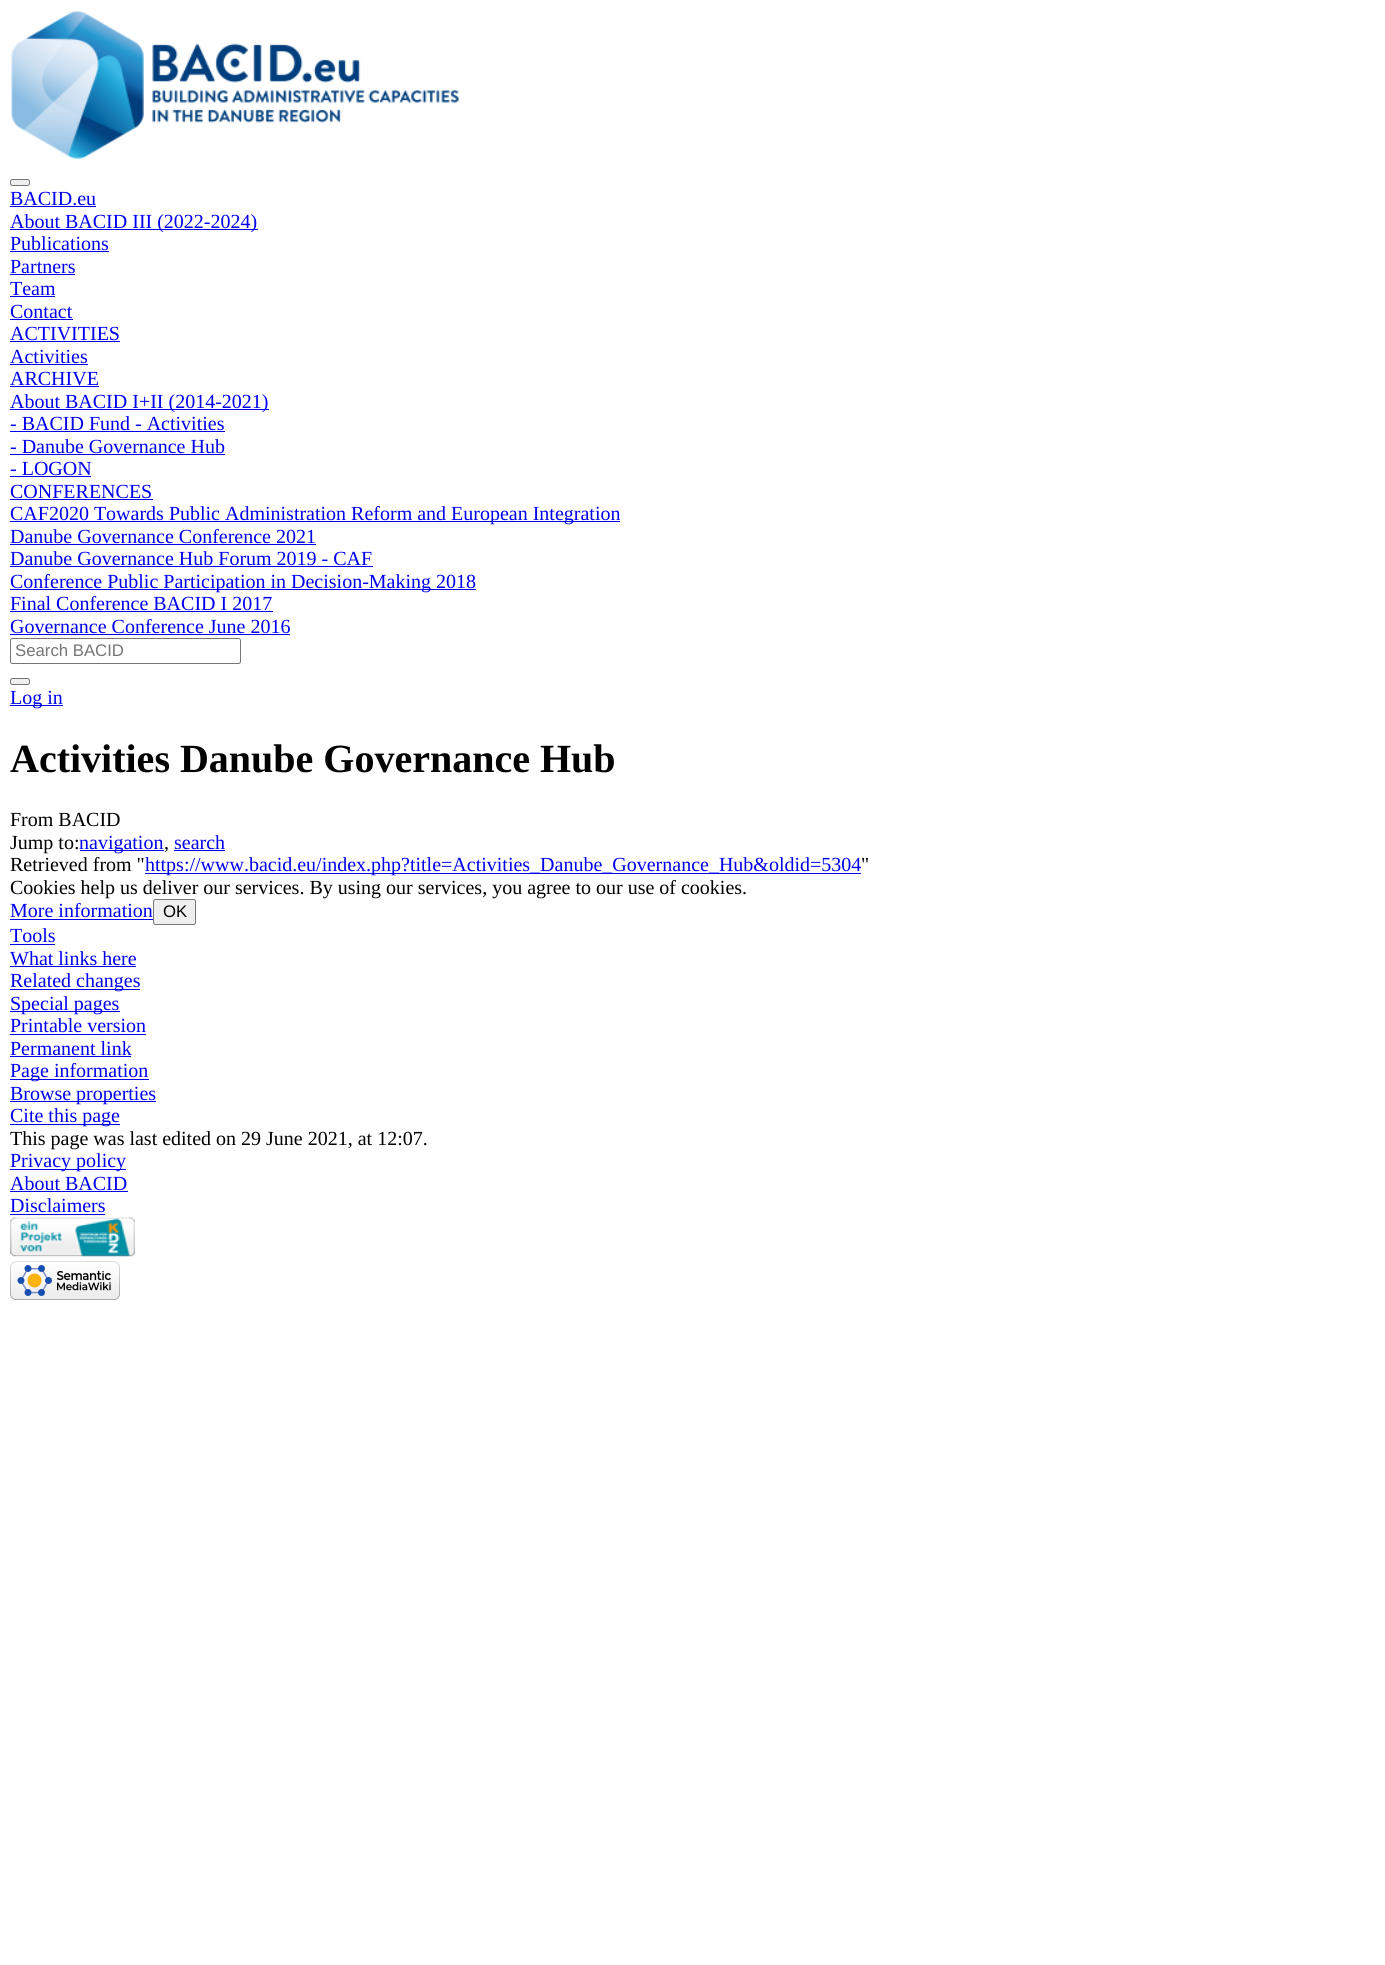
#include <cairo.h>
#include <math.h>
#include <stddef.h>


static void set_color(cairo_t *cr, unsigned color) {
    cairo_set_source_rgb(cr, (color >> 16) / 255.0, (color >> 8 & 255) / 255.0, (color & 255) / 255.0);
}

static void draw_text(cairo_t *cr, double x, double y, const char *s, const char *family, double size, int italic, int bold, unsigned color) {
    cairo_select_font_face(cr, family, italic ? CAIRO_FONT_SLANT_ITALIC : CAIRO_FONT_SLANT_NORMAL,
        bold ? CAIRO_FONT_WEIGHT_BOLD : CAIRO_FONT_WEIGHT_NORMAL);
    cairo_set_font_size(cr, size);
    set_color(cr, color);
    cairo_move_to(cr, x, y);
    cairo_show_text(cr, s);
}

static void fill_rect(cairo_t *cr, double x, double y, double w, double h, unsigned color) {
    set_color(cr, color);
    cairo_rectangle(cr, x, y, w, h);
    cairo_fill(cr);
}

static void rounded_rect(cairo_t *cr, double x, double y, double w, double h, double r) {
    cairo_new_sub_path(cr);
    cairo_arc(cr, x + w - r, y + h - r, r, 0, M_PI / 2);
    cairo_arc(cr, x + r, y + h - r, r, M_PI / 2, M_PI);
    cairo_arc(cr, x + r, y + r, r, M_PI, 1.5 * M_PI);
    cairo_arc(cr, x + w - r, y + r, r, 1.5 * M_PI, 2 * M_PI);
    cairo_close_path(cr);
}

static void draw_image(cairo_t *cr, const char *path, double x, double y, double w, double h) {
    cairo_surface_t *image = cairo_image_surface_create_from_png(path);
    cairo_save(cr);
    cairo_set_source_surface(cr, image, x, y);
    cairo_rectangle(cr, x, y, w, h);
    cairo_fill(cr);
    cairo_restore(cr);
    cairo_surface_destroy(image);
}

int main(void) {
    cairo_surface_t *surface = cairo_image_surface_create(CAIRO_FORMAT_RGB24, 1385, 1965);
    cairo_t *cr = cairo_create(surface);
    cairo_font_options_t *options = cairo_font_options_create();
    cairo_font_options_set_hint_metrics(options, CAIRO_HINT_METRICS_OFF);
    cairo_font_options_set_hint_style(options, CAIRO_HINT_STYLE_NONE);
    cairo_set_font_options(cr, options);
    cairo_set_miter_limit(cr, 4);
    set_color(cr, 0xFFFFFF);
    cairo_paint(cr);
    draw_image(cr, "assets/img1.png", 11, 11, 448, 148);
    set_color(cr, 0xEFEFEF);
    rounded_rect(cr, 10.5, 179.5, 19, 6, 2);
    cairo_fill_preserve(cr);
    set_color(cr, 0x767676);
    cairo_set_line_width(cr, 1);
    cairo_stroke(cr);
    draw_text(cr, 10, 205, "BACID.eu", "Liberation Serif", 20, 0, 0, 0x0000EE);
    fill_rect(cr, 10, 206, 86, 1, 0x0000EE);
    fill_rect(cr, 10, 229, 248, 1, 0x0000EE);
    draw_text(cr, 10, 228, "About BACID III (2022-2024)", "Liberation Serif", 20, 0, 0, 0x0000EE);
    draw_text(cr, 10, 250, "Publications", "Liberation Serif", 20, 0, 0, 0x0000EE);
    fill_rect(cr, 10, 251, 99, 1, 0x0000EE);
    draw_text(cr, 10, 273, "Partners", "Liberation Serif", 20, 0, 0, 0x0000EE);
    fill_rect(cr, 10, 274, 65, 1, 0x0000EE);
    draw_text(cr, 10, 295, "Team", "Liberation Serif", 20, 0, 0, 0x0000EE);
    fill_rect(cr, 10, 296, 45, 1, 0x0000EE);
    draw_text(cr, 10, 318, "Contact", "Liberation Serif", 20, 0, 0, 0x0000EE);
    fill_rect(cr, 10, 319, 63, 1, 0x0000EE);
    draw_text(cr, 10, 340, "ACTIVITIES", "Liberation Serif", 20, 0, 0, 0x0000EE);
    fill_rect(cr, 10, 341, 110, 1, 0x0000EE);
    draw_text(cr, 10, 363, "Activities", "Liberation Serif", 20, 0, 0, 0x0000EE);
    fill_rect(cr, 10, 364, 78, 1, 0x0000EE);
    draw_text(cr, 10, 385, "ARCHIVE", "Liberation Serif", 20, 0, 0, 0x0000EE);
    fill_rect(cr, 10, 386, 89, 1, 0x0000EE);
    fill_rect(cr, 10, 409, 259, 1, 0x0000EE);
    draw_text(cr, 10, 408, "About BACID I+II (2014-2021)", "Liberation Serif", 20, 0, 0, 0x0000EE);
    draw_text(cr, 10, 430, "- BACID Fund - Activities", "Liberation Serif", 20, 0, 0, 0x0000EE);
    fill_rect(cr, 10, 431, 215, 1, 0x0000EE);
    draw_text(cr, 10, 453, "- Danube Governance Hub", "Liberation Serif", 20, 0, 0, 0x0000EE);
    fill_rect(cr, 10, 454, 215, 1, 0x0000EE);
    draw_text(cr, 10, 475, "- LOGON", "Liberation Serif", 20, 0, 0, 0x0000EE);
    fill_rect(cr, 10, 476, 81, 1, 0x0000EE);
    draw_text(cr, 10, 498, "CONFERENCES", "Liberation Serif", 20, 0, 0, 0x0000EE);
    fill_rect(cr, 10, 499, 143, 1, 0x0000EE);
    fill_rect(cr, 10, 521, 610, 1, 0x0000EE);
    draw_text(cr, 10, 520, "CAF2020 Towards Public Administration Reform and European Integration", "Liberation Serif", 20, 0, 0, 0x0000EE);
    draw_text(cr, 10, 543, "Danube Governance Conference 2021", "Liberation Serif", 20, 0, 0, 0x0000EE);
    fill_rect(cr, 10, 544, 306, 1, 0x0000EE);
    draw_text(cr, 10, 565, "Danube Governance Hub Forum 2019 - CAF", "Liberation Serif", 20, 0, 0, 0x0000EE);
    fill_rect(cr, 10, 566, 363, 1, 0x0000EE);
    fill_rect(cr, 10, 589, 466, 1, 0x0000EE);
    draw_text(cr, 10, 588, "Conference Public Participation in Decision-Making 2018", "Liberation Serif", 20, 0, 0, 0x0000EE);
    draw_text(cr, 10, 610, "Final Conference BACID I 2017", "Liberation Serif", 20, 0, 0, 0x0000EE);
    fill_rect(cr, 10, 611, 263, 1, 0x0000EE);
    draw_text(cr, 10, 633, "Governance Conference June 2016", "Liberation Serif", 20, 0, 0, 0x0000EE);
    fill_rect(cr, 10, 634, 280, 1, 0x0000EE);
    rounded_rect(cr, 10.5, 638.5, 230, 25, 2);
    set_color(cr, 0x767676);
    cairo_stroke(cr);
    draw_text(cr, 15, 656, "Search BACID", "Liberation Sans", 16.75, 0, 0, 0x757575);
    set_color(cr, 0xEFEFEF);
    rounded_rect(cr, 10.5, 678.5, 19, 6, 2);
    cairo_fill_preserve(cr);
    set_color(cr, 0x767676);
    cairo_stroke(cr);
    fill_rect(cr, 10, 705, 53, 1, 0x0000EE);
    draw_text(cr, 10, 704, "Log in", "Liberation Serif", 20, 0, 0, 0x0000EE);
    draw_text(cr, 10, 772, "Activities Danube Governance Hub", "Liberation Serif", 40, 0, 1, 0x000000);
    draw_text(cr, 10, 826, "From BACID", "Liberation Serif", 20, 0, 0, 0x000000);
    draw_text(cr, 10, 849, "Jump to:", "Liberation Serif", 20, 0, 0, 0x000000);
    fill_rect(cr, 80, 850, 84, 1, 0x0000EE);
    draw_text(cr, 79, 849, "navigation", "Liberation Serif", 20, 0, 0, 0x0000EE);
    draw_text(cr, 164, 849, ",", "Liberation Serif", 20, 0, 0, 0x000000);
    draw_text(cr, 174, 849, "search", "Liberation Serif", 20, 0, 0, 0x0000EE);
    fill_rect(cr, 174, 850, 51, 1, 0x0000EE);
    draw_text(cr, 10, 871, "Retrieved from \"", "Liberation Serif", 20, 0, 0, 0x000000);
    fill_rect(cr, 145, 873, 716, 1, 0x0000EE);
    draw_text(cr, 145, 871, "https://www.bacid.eu/index.php?title=Activities_Danube_Governance_Hub&oldid=5304", "Liberation Serif", 20, 0, 0, 0x0000EE);
    draw_text(cr, 861, 871, "\"", "Liberation Serif", 20, 0, 0, 0x000000);
    draw_text(cr, 10, 894, "Cookies help us deliver our services. By using our services, you agree to our use of cookies.", "Liberation Serif", 20, 0, 0, 0x000000);
    draw_text(cr, 10, 917, "More information", "Liberation Serif", 20, 0, 0, 0x0000EE);
    fill_rect(cr, 10, 919, 143, 1, 0x0000EE);
    set_color(cr, 0xEFEFEF);
    rounded_rect(cr, 153.5, 899.5, 42, 25, 2);
    cairo_fill_preserve(cr);
    set_color(cr, 0x767676);
    cairo_stroke(cr);
    draw_text(cr, 163, 917, "OK", "Liberation Sans", 16.75, 0, 0, 0x000000);
    draw_text(cr, 10, 942, "Tools", "Liberation Serif", 20, 0, 0, 0x0000EE);
    fill_rect(cr, 10, 944, 45, 1, 0x0000EE);
    draw_text(cr, 10, 965, "What links here", "Liberation Serif", 20, 0, 0, 0x0000EE);
    fill_rect(cr, 10, 966, 126, 1, 0x0000EE);
    fill_rect(cr, 10, 989, 130, 1, 0x0000EE);
    draw_text(cr, 10, 987, "Related changes", "Liberation Serif", 20, 0, 0, 0x0000EE);
    fill_rect(cr, 10, 1011, 110, 1, 0x0000EE);
    draw_text(cr, 10, 1010, "Special pages", "Liberation Serif", 20, 0, 0, 0x0000EE);
    draw_text(cr, 10, 1032, "Printable version", "Liberation Serif", 20, 0, 0, 0x0000EE);
    fill_rect(cr, 10, 1034, 136, 1, 0x0000EE);
    draw_text(cr, 10, 1055, "Permanent link", "Liberation Serif", 20, 0, 0, 0x0000EE);
    fill_rect(cr, 10, 1056, 121, 1, 0x0000EE);
    fill_rect(cr, 10, 1079, 139, 1, 0x0000EE);
    draw_text(cr, 10, 1077, "Page information", "Liberation Serif", 20, 0, 0, 0x0000EE);
    fill_rect(cr, 10, 1101, 146, 1, 0x0000EE);
    draw_text(cr, 10, 1100, "Browse properties", "Liberation Serif", 20, 0, 0, 0x0000EE);
    fill_rect(cr, 10, 1124, 110, 1, 0x0000EE);
    draw_text(cr, 10, 1122, "Cite this page", "Liberation Serif", 20, 0, 0, 0x0000EE);
    draw_text(cr, 10, 1145, "This page was last edited on 29 June 2021, at 12:07.", "Liberation Serif", 20, 0, 0, 0x000000);
    fill_rect(cr, 10, 1169, 116, 1, 0x0000EE);
    draw_text(cr, 10, 1167, "Privacy policy", "Liberation Serif", 20, 0, 0, 0x0000EE);
    draw_text(cr, 10, 1190, "About BACID", "Liberation Serif", 20, 0, 0, 0x0000EE);
    fill_rect(cr, 10, 1191, 118, 1, 0x0000EE);
    draw_text(cr, 10, 1212, "Disclaimers", "Liberation Serif", 20, 0, 0, 0x0000EE);
    fill_rect(cr, 10, 1214, 95, 1, 0x0000EE);
    draw_image(cr, "assets/img2.png", 10, 1217, 125, 40);
    draw_image(cr, "assets/img3.png", 10, 1261, 110, 39);
    cairo_surface_write_to_png(surface, "output.png");
    cairo_font_options_destroy(options);
    cairo_destroy(cr);
    cairo_surface_destroy(surface);
    return 0;
}
